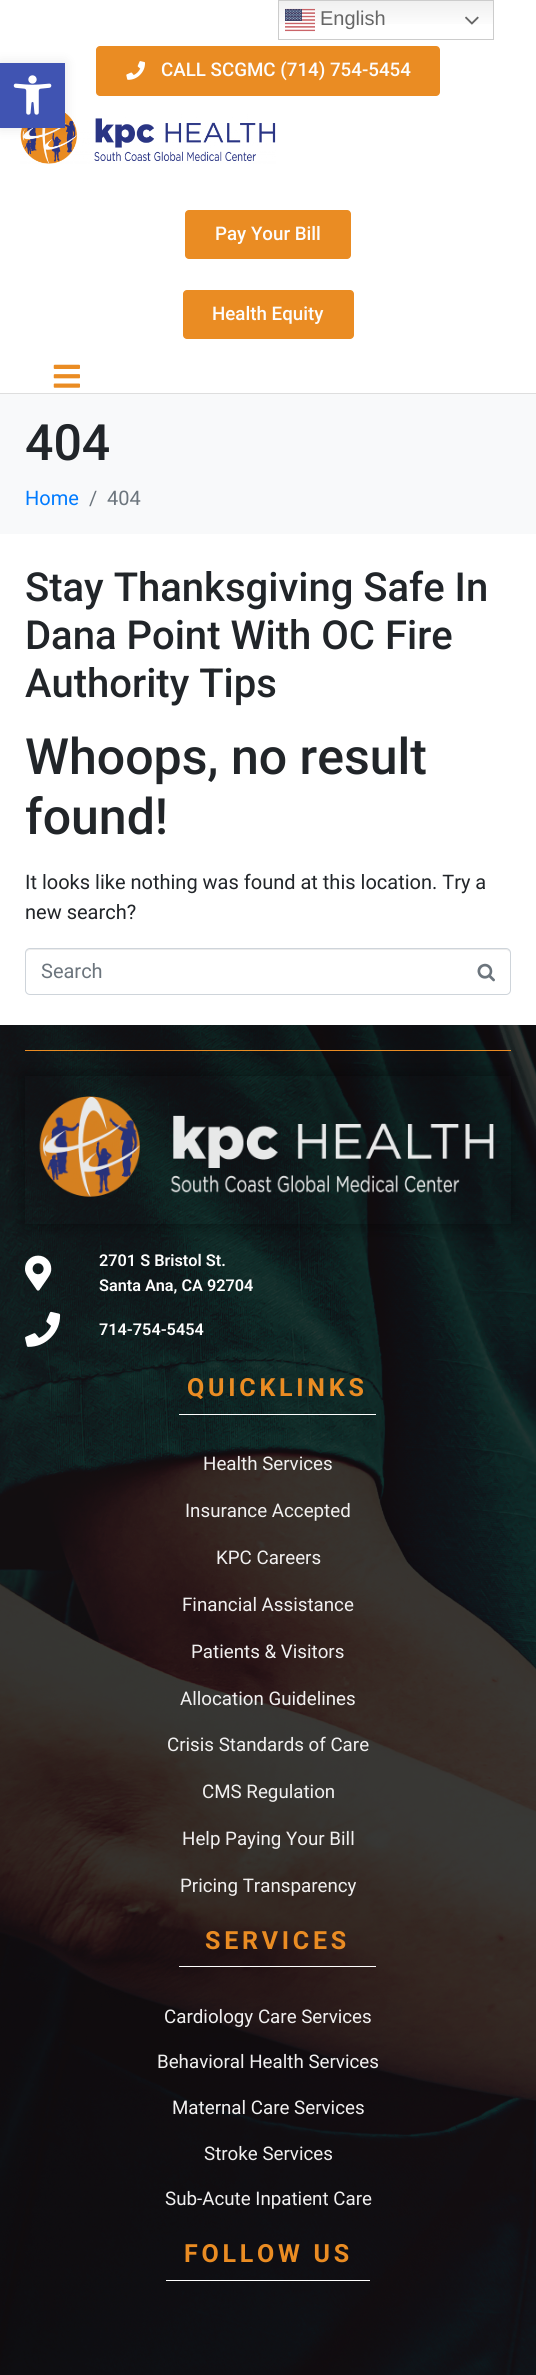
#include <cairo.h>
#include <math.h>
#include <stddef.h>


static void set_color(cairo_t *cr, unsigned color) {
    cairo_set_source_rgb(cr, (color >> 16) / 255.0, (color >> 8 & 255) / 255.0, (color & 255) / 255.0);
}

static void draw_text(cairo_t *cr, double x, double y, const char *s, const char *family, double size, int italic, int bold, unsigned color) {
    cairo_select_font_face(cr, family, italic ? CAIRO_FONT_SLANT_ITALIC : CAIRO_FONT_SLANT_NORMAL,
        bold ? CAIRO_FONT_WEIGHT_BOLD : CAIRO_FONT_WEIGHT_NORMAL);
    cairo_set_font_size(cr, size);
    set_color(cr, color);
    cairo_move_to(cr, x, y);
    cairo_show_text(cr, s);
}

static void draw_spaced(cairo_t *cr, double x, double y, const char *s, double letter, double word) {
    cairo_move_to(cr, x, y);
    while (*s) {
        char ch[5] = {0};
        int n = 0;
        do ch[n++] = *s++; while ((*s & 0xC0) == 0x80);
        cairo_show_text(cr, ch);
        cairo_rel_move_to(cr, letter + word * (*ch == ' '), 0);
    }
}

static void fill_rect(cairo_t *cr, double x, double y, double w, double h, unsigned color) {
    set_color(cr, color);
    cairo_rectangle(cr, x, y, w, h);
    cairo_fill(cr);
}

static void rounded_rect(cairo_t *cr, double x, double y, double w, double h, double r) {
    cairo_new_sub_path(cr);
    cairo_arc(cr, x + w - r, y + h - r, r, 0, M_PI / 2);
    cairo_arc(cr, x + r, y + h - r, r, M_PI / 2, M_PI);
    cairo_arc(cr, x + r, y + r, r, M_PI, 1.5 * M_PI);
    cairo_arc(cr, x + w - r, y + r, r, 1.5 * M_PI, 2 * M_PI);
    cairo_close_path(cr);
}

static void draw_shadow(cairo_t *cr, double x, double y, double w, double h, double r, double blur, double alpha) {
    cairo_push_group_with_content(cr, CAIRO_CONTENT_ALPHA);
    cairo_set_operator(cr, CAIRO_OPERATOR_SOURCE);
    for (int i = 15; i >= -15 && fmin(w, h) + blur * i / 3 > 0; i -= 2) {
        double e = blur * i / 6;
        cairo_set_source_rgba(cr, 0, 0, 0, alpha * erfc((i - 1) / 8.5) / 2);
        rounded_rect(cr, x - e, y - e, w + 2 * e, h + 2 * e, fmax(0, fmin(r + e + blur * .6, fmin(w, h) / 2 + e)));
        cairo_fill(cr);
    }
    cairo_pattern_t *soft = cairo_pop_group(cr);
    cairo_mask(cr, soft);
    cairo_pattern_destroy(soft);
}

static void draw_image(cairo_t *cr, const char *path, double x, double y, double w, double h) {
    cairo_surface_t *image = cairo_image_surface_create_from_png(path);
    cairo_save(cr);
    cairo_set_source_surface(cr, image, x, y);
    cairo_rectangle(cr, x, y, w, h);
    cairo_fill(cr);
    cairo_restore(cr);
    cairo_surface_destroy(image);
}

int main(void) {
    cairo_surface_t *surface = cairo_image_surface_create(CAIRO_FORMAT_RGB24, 536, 2375);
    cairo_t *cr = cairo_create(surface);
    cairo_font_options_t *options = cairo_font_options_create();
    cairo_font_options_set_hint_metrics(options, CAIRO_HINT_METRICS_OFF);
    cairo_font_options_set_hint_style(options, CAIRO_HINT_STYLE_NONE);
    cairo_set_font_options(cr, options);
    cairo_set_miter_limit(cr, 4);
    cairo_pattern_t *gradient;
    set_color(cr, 0xFFFFFF);
    cairo_paint(cr);
    gradient = cairo_pattern_create_linear(386, 0, 386, 40);
    cairo_pattern_add_color_stop_rgba(gradient, 0, 0.937, 0.937, 0.937, 1);
    cairo_pattern_add_color_stop_rgba(gradient, 0.7, 1, 1, 1, 1);
    cairo_set_source(cr, gradient);
    cairo_pattern_destroy(gradient);
    cairo_rectangle(cr, 279, 1, 214, 23);
    cairo_fill(cr);
    cairo_rectangle(cr, 278.5, 0.5, 215, 39);
    set_color(cr, 0xCCCCCC);
    cairo_set_line_width(cr, 1);
    cairo_stroke(cr);
    draw_image(cr, "assets/img1.png", 285, 8, 30, 24);
    draw_text(cr, 320, 25, "English", "Liberation Sans", 20, 0, 0, 0x666666);
    draw_image(cr, "assets/img2.png", 465, 16, 14, 9);
    draw_image(cr, "assets/img5.png", 20, 113, 256, 51);
    set_color(cr, 0x000000);
    draw_shadow(cr, 0, 63, 65, 65, 0, 6, 0.1);
    fill_rect(cr, 0, 63, 65, 65, 0x4054B2);
    draw_image(cr, "assets/img3.png", 13, 75, 39, 40);
    fill_rect(cr, 0, 393, 536, 1, 0xDEDEDE);
    set_color(cr, 0xEA8C23);
    rounded_rect(cr, 96, 46, 344, 50, 4);
    cairo_fill(cr);
    draw_image(cr, "assets/img4.png", 126, 61, 19, 19);
    draw_text(cr, 161, 76, "CALL SCGMC (714) 754-5454", "Roboto Medium", 18.75, 0, 0, 0xFDFDFD);
    set_color(cr, 0xEA8C23);
    rounded_rect(cr, 185, 210, 166, 49, 4);
    cairo_fill(cr);
    draw_text(cr, 215, 240, "Pay Your Bill", "Roboto Medium", 18.75, 0, 0, 0xFDFDFD);
    set_color(cr, 0xEA8C23);
    rounded_rect(cr, 183, 290, 171, 49, 4);
    cairo_fill(cr);
    draw_text(cr, 212, 320, "Health Equity", "Roboto Medium", 18.75, 0, 0, 0xFDFDFD);
    draw_image(cr, "assets/img6.png", 53, 364, 27, 24);
    fill_rect(cr, 0, 394, 536, 140, 0xF8F9FA);
    draw_text(cr, 25, 460, "404", "Roboto Medium", 50, 0, 0, 0x212529);
    draw_text(cr, 25, 505, "Home", "Roboto", 20, 0, 0, 0x007BFF);
    draw_text(cr, 89, 505, "/", "Roboto", 20, 0, 0, 0x6C757D);
    draw_text(cr, 107, 505, "404", "Roboto", 20, 0, 0, 0x6C757D);
    draw_text(cr, 25, 601, "Stay Thanksgiving Safe In", "Roboto Medium", 40, 0, 0, 0x212529);
    draw_text(cr, 25, 649, "Dana Point With OC Fire", "Roboto Medium", 40, 0, 0, 0x212529);
    draw_text(cr, 25, 697, "Authority Tips", "Roboto Medium", 40, 0, 0, 0x212529);
    draw_text(cr, 25, 774, "Whoops, no result", "Roboto Medium", 50, 0, 0, 0x212529);
    draw_text(cr, 25, 834, "found!", "Roboto Medium", 50, 0, 0, 0x212529);
    draw_text(cr, 25, 889, "It looks like nothing was found at this location. Try a", "Roboto", 20, 0, 0, 0x212529);
    draw_text(cr, 25, 919, "new search?", "Roboto", 20, 0, 0, 0x212529);
    set_color(cr, 0xECECEC);
    cairo_new_path(cr);
    cairo_move_to(cr, 30, 950);
    cairo_line_to(cr, 506, 950);
    cairo_curve_to(cr, 508, 950, 510, 952, 510, 954);
    cairo_curve_to(cr, 510, 951, 509, 949, 506, 949);
    cairo_line_to(cr, 30, 949);
    cairo_curve_to(cr, 27, 949, 26, 951, 26, 954);
    cairo_curve_to(cr, 26, 952, 28, 950, 30, 950);
    cairo_close_path(cr);
    cairo_fill(cr);
    rounded_rect(cr, 25.5, 948.5, 485, 46, 4.5);
    set_color(cr, 0xCED4DA);
    cairo_stroke(cr);
    draw_text(cr, 41, 978, "Search", "Roboto", 20, 0, 0, 0x6C757D);
    draw_image(cr, "assets/img7.png", 477, 963, 18, 19);
    draw_image(cr, "assets/img8.png", 0, 1025, 536, 1350);
    fill_rect(cr, 25, 1050, 486, 1, 0xEA8C23);
    cairo_save(cr);
    cairo_set_fill_rule(cr, CAIRO_FILL_RULE_EVEN_ODD);
    cairo_new_path(cr);
    cairo_move_to(cr, 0, 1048);
    cairo_line_to(cr, 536, 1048);
    cairo_line_to(cr, 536, 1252);
    cairo_line_to(cr, 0, 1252);
    cairo_close_path(cr);
    cairo_move_to(cr, 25, 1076);
    cairo_line_to(cr, 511, 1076);
    cairo_line_to(cr, 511, 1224);
    cairo_line_to(cr, 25, 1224);
    cairo_close_path(cr);
    cairo_clip(cr);
    set_color(cr, 0x000000);
    draw_shadow(cr, 25, 1076, 486, 148, 0, 9, 0.45);
    cairo_restore(cr);
    draw_image(cr, "assets/img9.png", 39, 1096, 455, 101);
    draw_image(cr, "assets/img10.png", 25, 1255, 27, 36);
    draw_text(cr, 99, 1266, "2701 S Bristol St.", "Roboto SemiBold", 16.25, 0, 0, 0xFDFDFD);
    draw_text(cr, 99, 1291, "Santa Ana, CA 92704", "Roboto SemiBold", 16.25, 0, 0, 0xFDFDFD);
    draw_image(cr, "assets/img11.png", 25, 1311, 36, 36);
    draw_text(cr, 99, 1335, "714-754-5454", "Roboto SemiBold", 16.25, 0, 0, 0xFDFDFD);
    cairo_select_font_face(cr, "Roboto", CAIRO_FONT_SLANT_NORMAL, CAIRO_FONT_WEIGHT_BOLD);
    cairo_set_font_size(cr, 25);
    set_color(cr, 0xEA8C23);
    draw_spaced(cr, 187, 1396, "QUICKLINKS", 3.75, 0);
    fill_rect(cr, 179, 1414, 197, 1, 0xFFFFFF);
    draw_text(cr, 203, 1470, "Health Services", "Roboto", 18.75, 0, 0, 0xF1F0F0);
    draw_text(cr, 185, 1517, "Insurance Accepted", "Roboto", 18.75, 0, 0, 0xF1F0F0);
    draw_text(cr, 216, 1564, "KPC Careers", "Roboto", 18.75, 0, 0, 0xF1F0F0);
    draw_text(cr, 182, 1611, "Financial Assistance", "Roboto", 18.75, 0, 0, 0xF1F0F0);
    draw_text(cr, 191, 1658, "Patients & Visitors", "Roboto", 18.75, 0, 0, 0xF1F0F0);
    draw_text(cr, 180, 1705, "Allocation Guidelines", "Roboto", 18.75, 0, 0, 0xF1F0F0);
    draw_text(cr, 167, 1751, "Crisis Standards of Care", "Roboto", 18.75, 0, 0, 0xF1F0F0);
    draw_text(cr, 202, 1798, "CMS Regulation", "Roboto", 18.75, 0, 0, 0xF1F0F0);
    draw_text(cr, 182, 1845, "Help Paying Your Bill", "Roboto", 18.75, 0, 0, 0xF1F0F0);
    draw_text(cr, 180, 1892, "Pricing Transparency", "Roboto", 18.75, 0, 0, 0xF1F0F0);
    cairo_select_font_face(cr, "Roboto", CAIRO_FONT_SLANT_NORMAL, CAIRO_FONT_WEIGHT_BOLD);
    cairo_set_font_size(cr, 25);
    set_color(cr, 0xEA8C23);
    draw_spaced(cr, 205, 1949, "SERVICES", 3.75, 0);
    fill_rect(cr, 179, 1966, 197, 1, 0xFFFFFF);
    draw_text(cr, 164, 2023, "Cardiology Care Services", "Roboto", 18.75, 0, 0, 0xF1F0F0);
    draw_text(cr, 157, 2068, "Behavioral Health Services", "Roboto", 18.75, 0, 0, 0xF1F0F0);
    draw_text(cr, 172, 2114, "Maternal Care Services", "Roboto", 18.75, 0, 0, 0xF1F0F0);
    draw_text(cr, 204, 2160, "Stroke Services", "Roboto", 18.75, 0, 0, 0xF1F0F0);
    draw_text(cr, 165, 2205, "Sub-Acute Inpatient Care", "Roboto", 18.75, 0, 0, 0xF1F0F0);
    cairo_select_font_face(cr, "Roboto", CAIRO_FONT_SLANT_NORMAL, CAIRO_FONT_WEIGHT_BOLD);
    cairo_set_font_size(cr, 25);
    set_color(cr, 0xEA8C23);
    draw_spaced(cr, 184, 2262, "FOLLOW US", 3.75, 0);
    fill_rect(cr, 166, 2280, 204, 1, 0xFFFFFF);
    cairo_surface_write_to_png(surface, "output.png");
    cairo_font_options_destroy(options);
    cairo_destroy(cr);
    cairo_surface_destroy(surface);
    return 0;
}
